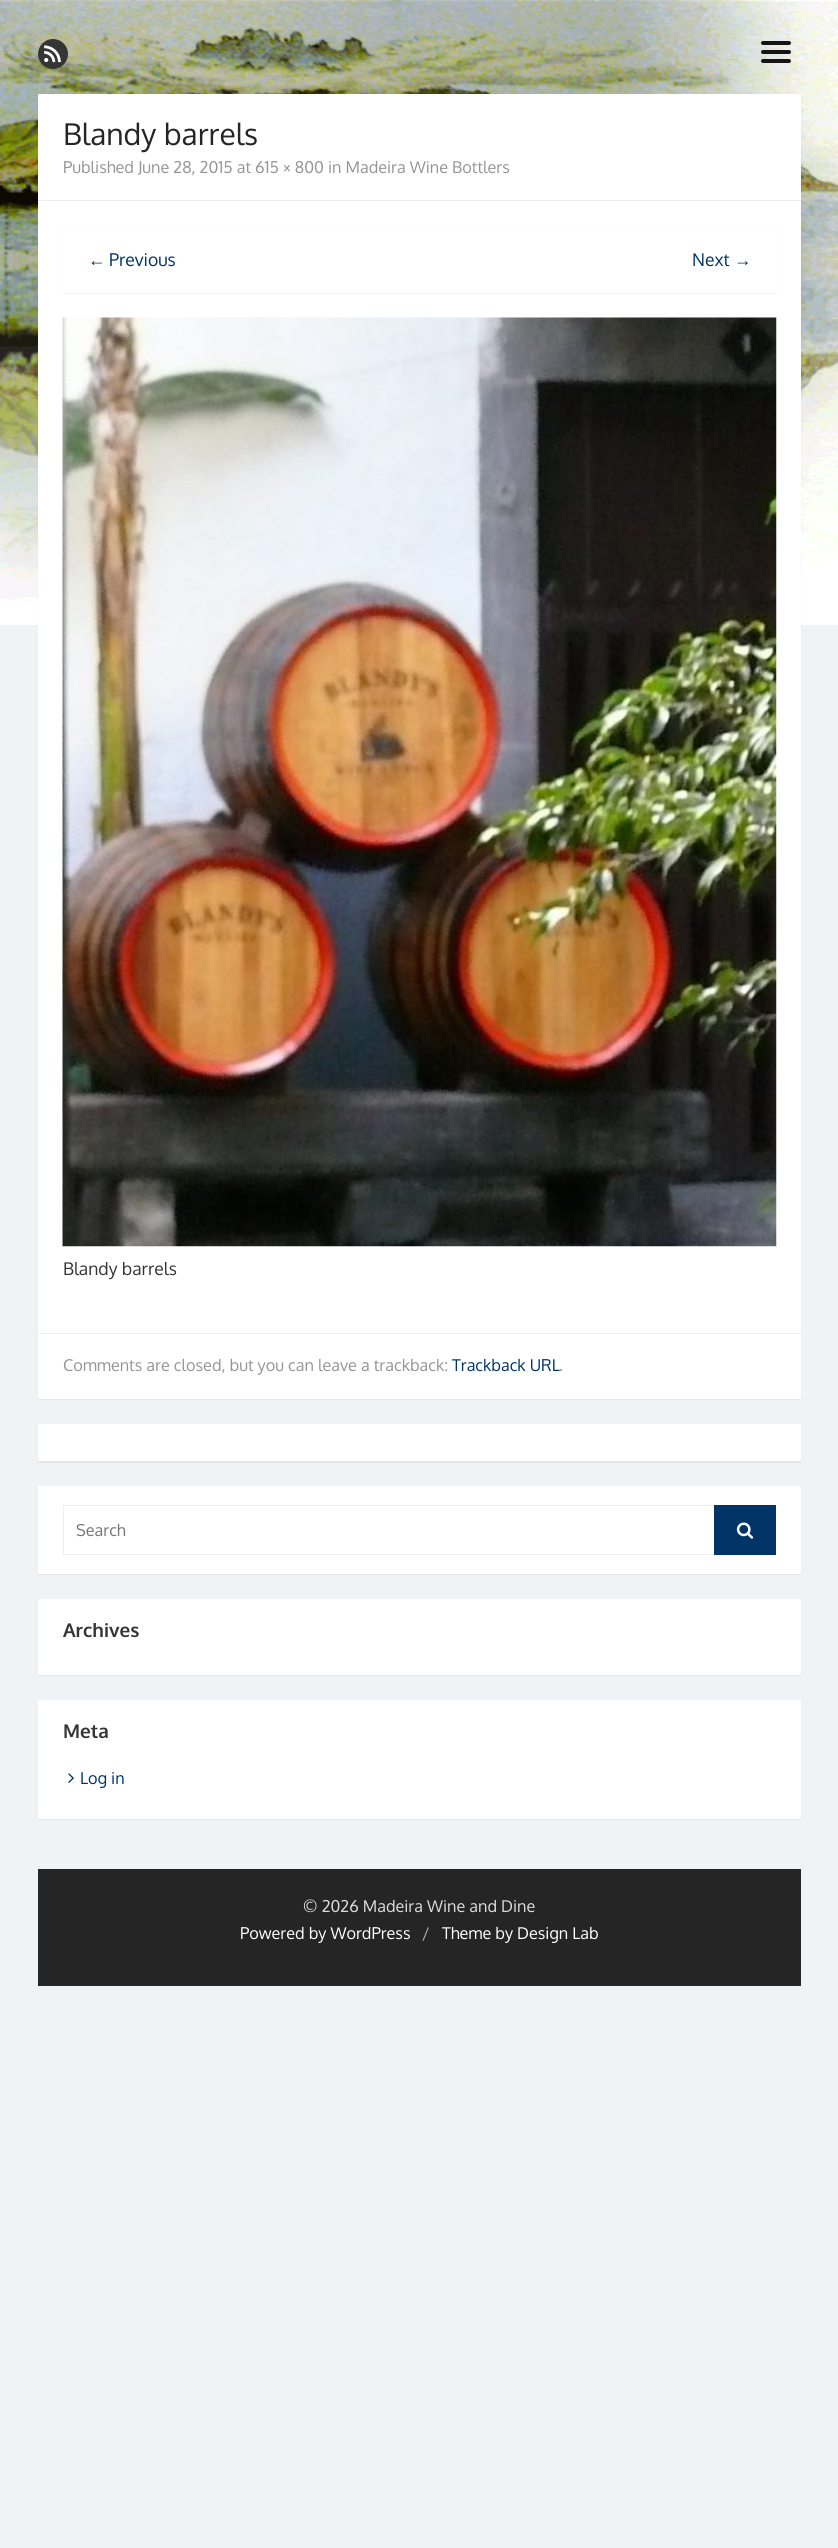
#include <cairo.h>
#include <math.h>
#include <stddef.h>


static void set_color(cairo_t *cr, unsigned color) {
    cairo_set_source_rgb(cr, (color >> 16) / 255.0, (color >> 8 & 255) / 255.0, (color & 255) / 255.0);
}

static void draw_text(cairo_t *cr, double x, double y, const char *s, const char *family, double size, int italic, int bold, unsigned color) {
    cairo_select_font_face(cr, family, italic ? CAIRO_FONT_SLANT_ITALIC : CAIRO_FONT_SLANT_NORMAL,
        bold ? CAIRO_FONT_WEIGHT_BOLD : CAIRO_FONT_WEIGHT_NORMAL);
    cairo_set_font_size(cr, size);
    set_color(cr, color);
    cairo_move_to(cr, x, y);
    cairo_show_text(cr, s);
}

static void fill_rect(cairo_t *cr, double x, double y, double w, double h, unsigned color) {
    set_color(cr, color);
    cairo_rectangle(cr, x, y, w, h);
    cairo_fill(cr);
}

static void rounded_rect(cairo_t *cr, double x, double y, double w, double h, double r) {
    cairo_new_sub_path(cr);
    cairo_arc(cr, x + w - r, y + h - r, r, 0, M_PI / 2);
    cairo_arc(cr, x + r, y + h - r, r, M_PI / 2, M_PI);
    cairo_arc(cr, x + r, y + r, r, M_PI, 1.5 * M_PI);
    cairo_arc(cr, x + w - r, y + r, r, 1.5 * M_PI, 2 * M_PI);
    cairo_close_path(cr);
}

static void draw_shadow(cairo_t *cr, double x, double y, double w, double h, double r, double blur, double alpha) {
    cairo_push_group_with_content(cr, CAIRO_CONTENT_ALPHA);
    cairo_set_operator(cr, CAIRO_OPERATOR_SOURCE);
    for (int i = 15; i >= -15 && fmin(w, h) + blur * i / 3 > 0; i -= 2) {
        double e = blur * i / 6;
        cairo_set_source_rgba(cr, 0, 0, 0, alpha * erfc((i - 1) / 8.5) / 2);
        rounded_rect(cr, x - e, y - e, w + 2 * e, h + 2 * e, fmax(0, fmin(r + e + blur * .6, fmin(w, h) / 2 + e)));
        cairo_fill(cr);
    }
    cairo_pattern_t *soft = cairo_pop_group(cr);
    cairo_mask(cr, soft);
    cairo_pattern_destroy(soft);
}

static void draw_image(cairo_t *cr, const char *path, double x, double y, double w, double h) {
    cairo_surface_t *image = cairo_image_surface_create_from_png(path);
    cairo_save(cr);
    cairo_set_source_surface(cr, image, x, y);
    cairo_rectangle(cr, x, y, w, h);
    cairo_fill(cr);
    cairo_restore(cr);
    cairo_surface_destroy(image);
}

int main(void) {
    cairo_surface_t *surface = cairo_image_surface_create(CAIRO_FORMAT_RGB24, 838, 2548);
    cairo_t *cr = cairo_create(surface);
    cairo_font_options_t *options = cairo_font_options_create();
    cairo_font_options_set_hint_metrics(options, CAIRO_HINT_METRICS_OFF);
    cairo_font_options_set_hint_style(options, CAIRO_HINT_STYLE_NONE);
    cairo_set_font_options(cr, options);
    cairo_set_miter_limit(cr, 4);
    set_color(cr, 0xF0F3F5);
    cairo_paint(cr);
    draw_image(cr, "assets/img1.png", 0, 0, 838, 625);
    set_color(cr, 0x353535);
    cairo_arc(cr, 53, 54, 15, 0, 2 * M_PI);
    cairo_fill(cr);
    draw_image(cr, "assets/img2.png", 44, 45, 17, 18);
    set_color(cr, 0x151515);
    rounded_rect(cr, 761, 50, 30, 4, 2);
    cairo_fill(cr);
    rounded_rect(cr, 761, 41, 30, 4, 2);
    cairo_fill(cr);
    rounded_rect(cr, 761, 59, 30, 4, 2);
    cairo_fill(cr);
    set_color(cr, 0x000000);
    draw_shadow(cr, 38, 95, 763, 1305, 0, 0.5, 0.06);
    fill_rect(cr, 38, 94, 763, 1305, 0xFFFFFF);
    fill_rect(cr, 38, 200, 763, 1, 0xEDEDED);
    draw_text(cr, 63, 145, "Blandy barrels", "Oxygen", 30, 0, 0, 0x252525);
    draw_text(cr, 63, 173, "Published June 28, 2015 at 615 × 800 in Madeira Wine Bottlers", "Oxygen", 16.25, 0, 0, 0x959595);
    set_color(cr, 0x000000);
    draw_shadow(cr, 63, 228, 713, 66, 0, 0.5, 0.06);
    fill_rect(cr, 63, 228, 713, 65, 0xFFFFFF);
    draw_text(cr, 88, 266, "←", "Liberation Sans", 17.5, 0, 0, 0x003366);
    draw_text(cr, 109, 266, "Previous", "Oxygen", 17.5, 0, 0, 0x003366);
    draw_text(cr, 692, 266, "Next", "Oxygen", 17.5, 0, 0, 0x003366);
    draw_text(cr, 734, 266, "→", "Liberation Sans", 17.5, 0, 0, 0x003366);
    draw_image(cr, "assets/img3.png", 62, 317, 715, 930);
    draw_text(cr, 63, 1275, "Blandy barrels", "Oxygen", 17.5, 0, 0, 0x353535);
    fill_rect(cr, 38, 1333, 763, 1, 0xEDEDED);
    draw_text(cr, 63, 1371, "Comments are closed, but you can leave a trackback:", "Oxygen", 16.25, 0, 0, 0x959595);
    draw_text(cr, 452, 1371, "Trackback URL", "Oxygen", 16.25, 0, 0, 0x003366);
    draw_text(cr, 559, 1371, ".", "Oxygen", 16.25, 0, 0, 0x959595);
    set_color(cr, 0x000000);
    draw_shadow(cr, 38, 1425, 763, 38, 0, 0.5, 0.06);
    fill_rect(cr, 38, 1424, 763, 37, 0xFFFFFF);
    set_color(cr, 0x000000);
    draw_shadow(cr, 38, 1488, 763, 87, 0, 0.5, 0.06);
    fill_rect(cr, 38, 1486, 763, 88, 0xFFFFFF);
    cairo_rectangle(cr, 63.5, 1505.5, 712, 49);
    set_color(cr, 0xEEEEEE);
    cairo_set_line_width(cr, 1);
    cairo_stroke(cr);
    draw_text(cr, 76, 1536, "Search", "Oxygen", 16.25, 0, 0, 0x757575);
    fill_rect(cr, 714, 1505, 62, 50, 0x003366);
    draw_image(cr, "assets/img4.png", 736, 1522, 18, 17);
    set_color(cr, 0x000000);
    draw_shadow(cr, 38, 1600, 763, 76, 0, 0.5, 0.06);
    fill_rect(cr, 38, 1599, 763, 76, 0xFFFFFF);
    draw_text(cr, 63, 1637, "Archives", "Oxygen", 19, 0, 1, 0x353535);
    set_color(cr, 0x000000);
    draw_shadow(cr, 38, 1701, 763, 119, 0, 0.5, 0.06);
    fill_rect(cr, 38, 1700, 763, 119, 0xFFFFFF);
    draw_text(cr, 63, 1738, "Meta", "Oxygen", 19, 0, 1, 0x353535);
    draw_image(cr, "assets/img5.png", 68, 1773, 6, 10);
    draw_text(cr, 80, 1784, "Log in", "Oxygen", 16.25, 0, 0, 0x003366);
    fill_rect(cr, 38, 1869, 763, 117, 0x252525);
    draw_text(cr, 303, 1912, "© 2026 Madeira Wine and Dine", "Oxygen", 16.25, 0, 0, 0xDEDEDE);
    draw_text(cr, 240, 1939, "Powered by WordPress", "Oxygen", 16.25, 0, 0, 0xFFFFFF);
    draw_text(cr, 422, 1939, "/", "Oxygen", 16.25, 0, 0, 0xB5B5B5);
    draw_text(cr, 442, 1939, "Theme by Design Lab", "Oxygen", 16.25, 0, 0, 0xFFFFFF);
    cairo_surface_write_to_png(surface, "output.png");
    cairo_font_options_destroy(options);
    cairo_destroy(cr);
    cairo_surface_destroy(surface);
    return 0;
}
